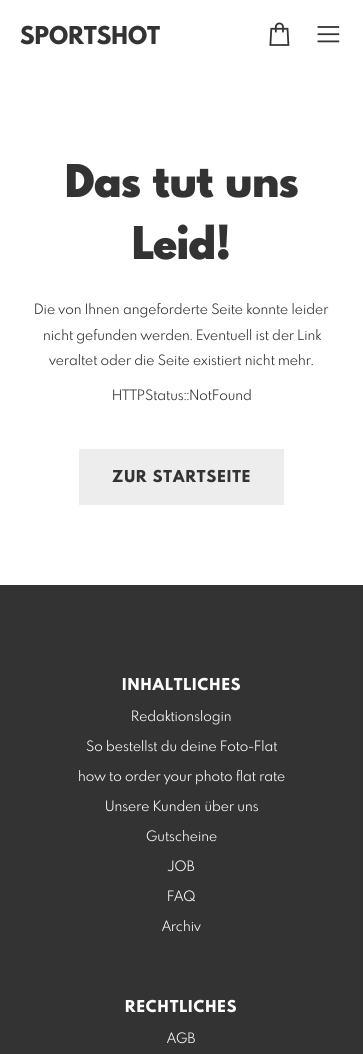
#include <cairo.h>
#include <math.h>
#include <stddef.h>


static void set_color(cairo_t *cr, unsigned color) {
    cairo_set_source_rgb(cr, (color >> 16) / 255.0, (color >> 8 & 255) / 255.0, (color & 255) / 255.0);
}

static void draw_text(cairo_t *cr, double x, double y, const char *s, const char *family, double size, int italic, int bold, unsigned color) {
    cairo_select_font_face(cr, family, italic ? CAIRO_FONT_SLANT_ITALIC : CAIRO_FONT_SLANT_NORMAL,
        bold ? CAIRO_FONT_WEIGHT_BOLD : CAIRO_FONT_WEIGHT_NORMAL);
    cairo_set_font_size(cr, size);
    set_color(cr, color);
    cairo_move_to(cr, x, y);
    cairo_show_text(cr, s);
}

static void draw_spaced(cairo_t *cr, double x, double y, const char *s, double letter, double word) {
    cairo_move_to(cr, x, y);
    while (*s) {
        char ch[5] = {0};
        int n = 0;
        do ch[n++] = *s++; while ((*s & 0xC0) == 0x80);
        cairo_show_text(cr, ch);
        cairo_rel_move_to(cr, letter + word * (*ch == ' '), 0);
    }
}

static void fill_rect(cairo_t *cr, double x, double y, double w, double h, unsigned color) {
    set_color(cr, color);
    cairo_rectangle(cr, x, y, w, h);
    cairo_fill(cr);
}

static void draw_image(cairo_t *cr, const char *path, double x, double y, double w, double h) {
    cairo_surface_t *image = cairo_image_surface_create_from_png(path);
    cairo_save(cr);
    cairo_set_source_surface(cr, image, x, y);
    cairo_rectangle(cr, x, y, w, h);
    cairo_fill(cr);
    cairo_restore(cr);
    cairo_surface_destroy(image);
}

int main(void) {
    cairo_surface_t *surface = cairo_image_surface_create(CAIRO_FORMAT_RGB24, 363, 1054);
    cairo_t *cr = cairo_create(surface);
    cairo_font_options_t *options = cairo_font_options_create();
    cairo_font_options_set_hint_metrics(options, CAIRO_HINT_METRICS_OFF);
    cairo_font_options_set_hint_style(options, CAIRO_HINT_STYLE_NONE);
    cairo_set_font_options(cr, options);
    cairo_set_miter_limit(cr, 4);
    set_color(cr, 0x333333);
    cairo_paint(cr);
    fill_rect(cr, 0, 0, 363, 585, 0xFFFFFF);
    draw_text(cr, 20, 44, "SPORTSHOT", "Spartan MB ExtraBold", 24, 0, 0, 0x333333);
    draw_image(cr, "assets/img1.png", 269, 22, 21, 24);
    draw_image(cr, "assets/img2.png", 317, 26, 23, 17);
    draw_text(cr, 65, 197, "Das tut uns", "Spartan MB Black", 44, 0, 0, 0x333333);
    draw_text(cr, 132, 259, "Leid!", "Spartan MB Black", 44, 0, 0, 0x333333);
    draw_text(cr, 34, 314, "Die von Ihnen angeforderte Seite konnte leider", "Spartan MB", 14, 0, 0, 0x333333);
    draw_text(cr, 43, 340, "nicht gefunden werden. Eventuell ist der Link", "Spartan MB", 14, 0, 0, 0x333333);
    draw_text(cr, 49, 365, "veraltet oder die Seite existiert nicht mehr.", "Spartan MB", 14, 0, 0, 0x333333);
    draw_text(cr, 112, 400, "HTTPStatus::NotFound", "Spartan MB", 14, 0, 0, 0x333333);
    fill_rect(cr, 79, 449, 205, 56, 0xEDEDED);
    cairo_select_font_face(cr, "Spartan MB ExtraBold", CAIRO_FONT_SLANT_NORMAL, CAIRO_FONT_WEIGHT_NORMAL);
    cairo_set_font_size(cr, 16);
    set_color(cr, 0x333333);
    draw_spaced(cr, 112, 482, "ZUR STARTSEITE", 1, 0);
    set_color(cr, 0xFCFAFA);
    draw_spaced(cr, 122, 690, "INHALTLICHES", 1, 0);
    draw_text(cr, 131, 721, "Redaktionslogin", "Spartan MB", 14, 0, 0, 0xFCFAFA);
    draw_text(cr, 86, 751, "So bestellst du deine Foto-Flat", "Spartan MB", 14, 0, 0, 0xFCFAFA);
    draw_text(cr, 78, 781, "how to order your photo flat rate", "Spartan MB", 14, 0, 0, 0xFCFAFA);
    draw_text(cr, 105, 811, "Unsere Kunden über uns", "Spartan MB", 14, 0, 0, 0xFCFAFA);
    draw_text(cr, 146, 841, "Gutscheine", "Spartan MB", 14, 0, 0, 0xFCFAFA);
    draw_text(cr, 168, 871, "JOB", "Spartan MB", 14, 0, 0, 0xFCFAFA);
    draw_text(cr, 167, 901, "FAQ", "Spartan MB", 14, 0, 0, 0xFCFAFA);
    draw_text(cr, 162, 931, "Archiv", "Spartan MB", 14, 0, 0, 0xFCFAFA);
    cairo_select_font_face(cr, "Spartan MB ExtraBold", CAIRO_FONT_SLANT_NORMAL, CAIRO_FONT_WEIGHT_NORMAL);
    cairo_set_font_size(cr, 16);
    draw_spaced(cr, 125, 1012, "RECHTLICHES", 1, 0);
    draw_text(cr, 167, 1043, "AGB", "Spartan MB", 14, 0, 0, 0xFCFAFA);
    cairo_surface_write_to_png(surface, "output.png");
    cairo_font_options_destroy(options);
    cairo_destroy(cr);
    cairo_surface_destroy(surface);
    return 0;
}
